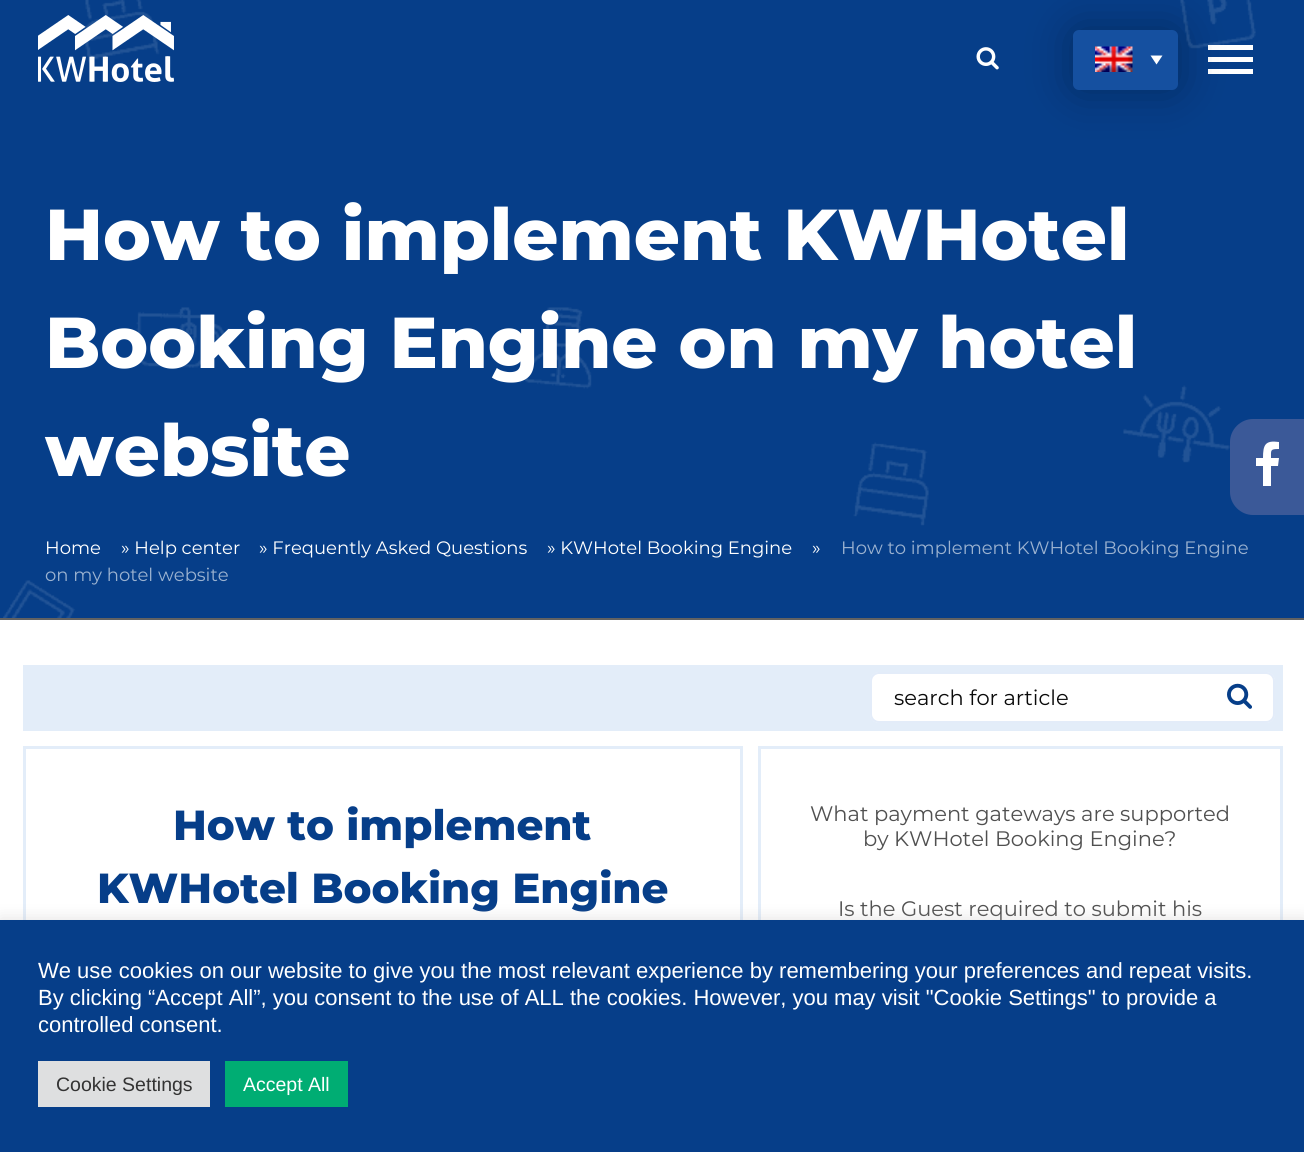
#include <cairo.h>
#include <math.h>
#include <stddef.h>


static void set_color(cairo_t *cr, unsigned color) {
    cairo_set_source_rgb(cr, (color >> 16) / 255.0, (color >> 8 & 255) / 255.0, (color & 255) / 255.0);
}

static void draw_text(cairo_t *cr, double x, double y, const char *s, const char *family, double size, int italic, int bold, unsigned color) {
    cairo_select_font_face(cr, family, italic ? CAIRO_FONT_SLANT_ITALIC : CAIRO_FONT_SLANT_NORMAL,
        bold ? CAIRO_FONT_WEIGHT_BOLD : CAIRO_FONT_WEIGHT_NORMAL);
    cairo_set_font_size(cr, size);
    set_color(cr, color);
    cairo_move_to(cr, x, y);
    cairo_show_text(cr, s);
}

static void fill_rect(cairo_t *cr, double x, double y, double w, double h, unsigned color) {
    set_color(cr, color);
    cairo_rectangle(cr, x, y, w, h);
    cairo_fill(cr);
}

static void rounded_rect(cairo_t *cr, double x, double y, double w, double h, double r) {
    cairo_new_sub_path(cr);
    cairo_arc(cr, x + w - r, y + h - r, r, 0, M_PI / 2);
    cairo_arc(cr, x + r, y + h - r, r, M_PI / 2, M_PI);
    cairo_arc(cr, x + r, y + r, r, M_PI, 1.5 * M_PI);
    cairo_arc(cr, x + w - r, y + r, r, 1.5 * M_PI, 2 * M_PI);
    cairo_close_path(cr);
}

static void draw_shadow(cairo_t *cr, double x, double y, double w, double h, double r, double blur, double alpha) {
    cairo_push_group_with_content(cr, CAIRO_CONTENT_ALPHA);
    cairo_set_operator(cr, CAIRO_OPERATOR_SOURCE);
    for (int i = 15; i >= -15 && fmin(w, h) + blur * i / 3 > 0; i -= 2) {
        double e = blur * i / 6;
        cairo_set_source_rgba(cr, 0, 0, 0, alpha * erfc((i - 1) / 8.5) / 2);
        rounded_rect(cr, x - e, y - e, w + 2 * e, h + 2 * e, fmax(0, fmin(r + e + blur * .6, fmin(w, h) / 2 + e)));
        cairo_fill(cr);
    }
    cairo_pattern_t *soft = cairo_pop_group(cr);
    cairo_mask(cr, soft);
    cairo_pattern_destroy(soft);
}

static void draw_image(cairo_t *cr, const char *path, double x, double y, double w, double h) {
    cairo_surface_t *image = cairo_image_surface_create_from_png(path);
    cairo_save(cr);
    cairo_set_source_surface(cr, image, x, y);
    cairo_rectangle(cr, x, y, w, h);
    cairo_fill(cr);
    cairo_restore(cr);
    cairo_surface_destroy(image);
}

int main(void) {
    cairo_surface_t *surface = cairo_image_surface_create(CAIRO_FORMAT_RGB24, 1304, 1152);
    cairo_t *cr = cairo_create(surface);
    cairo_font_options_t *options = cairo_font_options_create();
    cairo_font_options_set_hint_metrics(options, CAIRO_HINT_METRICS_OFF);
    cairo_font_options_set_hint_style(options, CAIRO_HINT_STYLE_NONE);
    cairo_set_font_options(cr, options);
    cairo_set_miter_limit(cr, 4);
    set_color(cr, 0xFFFFFF);
    cairo_paint(cr);
    fill_rect(cr, 0, 0, 1304, 618, 0x063E89);
    draw_image(cr, "assets/img1.png", 3, 0, 1253, 618);
    fill_rect(cr, 0, 618, 1304, 2, 0x626262);
    draw_image(cr, "assets/img2.png", 38, 15, 136, 67);
    draw_image(cr, "assets/img3.png", 976, 47, 23, 23);
    fill_rect(cr, 1208, 69, 45, 5, 0xFFFFFF);
    fill_rect(cr, 1208, 57, 45, 5, 0xFFFFFF);
    fill_rect(cr, 1208, 45, 45, 5, 0xFFFFFF);
    set_color(cr, 0x000000);
    draw_shadow(cr, 1073, 30, 105, 60, 6, 22.5, 0.3);
    set_color(cr, 0x1550A0);
    rounded_rect(cr, 1073, 30, 105, 60, 6);
    cairo_fill(cr);
    draw_image(cr, "assets/img4.png", 1095, 46, 38, 26);
    set_color(cr, 0xFFFFFF);
    cairo_new_path(cr);
    cairo_move_to(cr, 1150.5, 55.5);
    cairo_line_to(cr, 1162.5, 55.5);
    cairo_line_to(cr, 1156.5, 64.5);
    cairo_close_path(cr);
    cairo_fill(cr);
    draw_text(cr, 45, 260, "How to implement KWHotel", "Montserrat ExtraBold", 72, 0, 0, 0xFFFFFF);
    draw_text(cr, 45, 368, "Booking Engine on my hotel", "Montserrat ExtraBold", 72, 0, 0, 0xFFFFFF);
    draw_text(cr, 45, 476, "website", "Montserrat ExtraBold", 72, 0, 0, 0xFFFFFF);
    draw_text(cr, 45, 554, "Home", "Montserrat", 18, 0, 0, 0xFFFFFF);
    draw_text(cr, 121, 554, "» Help center", "Montserrat", 18, 0, 0, 0xFFFFFF);
    draw_text(cr, 259, 554, "» Frequently Asked Questions", "Montserrat", 18, 0, 0, 0xFFFFFF);
    draw_text(cr, 547, 554, "» KWHotel Booking Engine", "Montserrat", 18, 0, 0, 0xFFFFFF);
    draw_text(cr, 812, 554, "»", "Montserrat", 18, 0, 0, 0xFFFFFF);
    draw_text(cr, 841, 554, "How to implement KWHotel Booking Engine", "Montserrat", 18, 0, 0, 0x9BB2D0);
    draw_text(cr, 45, 581, "on my hotel website", "Montserrat", 18, 0, 0, 0x9BB2D0);
    set_color(cr, 0x3B5998);
    cairo_new_path(cr);
    cairo_move_to(cr, 1253, 419);
    cairo_line_to(cr, 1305, 419);
    cairo_line_to(cr, 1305, 515);
    cairo_line_to(cr, 1253, 515);
    cairo_curve_to(cr, 1240.5, 515, 1230, 504.5, 1230, 492);
    cairo_line_to(cr, 1230, 442);
    cairo_curve_to(cr, 1230, 429.5, 1240.5, 419, 1253, 419);
    cairo_close_path(cr);
    cairo_fill(cr);
    set_color(cr, 0xFFFFFF);
    cairo_new_path(cr);
    cairo_move_to(cr, 1279, 442);
    cairo_line_to(cr, 1279, 449);
    cairo_curve_to(cr, 1270, 449, 1271, 450, 1271, 458);
    cairo_line_to(cr, 1279, 458);
    cairo_line_to(cr, 1278, 466);
    cairo_line_to(cr, 1271, 466);
    cairo_line_to(cr, 1271, 486);
    cairo_line_to(cr, 1263, 486);
    cairo_line_to(cr, 1263, 466);
    cairo_line_to(cr, 1256, 466);
    cairo_line_to(cr, 1256, 458);
    cairo_line_to(cr, 1263, 458);
    cairo_curve_to(cr, 1263, 445, 1265, 440, 1279, 442);
    cairo_close_path(cr);
    cairo_fill(cr);
    fill_rect(cr, 23, 665, 1260, 66, 0xE3EDF9);
    set_color(cr, 0xFFFFFF);
    rounded_rect(cr, 870, 672, 405, 51, 9);
    cairo_fill(cr);
    rounded_rect(cr, 871, 673, 403, 49, 8);
    cairo_set_source_rgba(cr, 0.725, 0.82, 0.941, 0.4);
    cairo_stroke(cr);
    draw_text(cr, 894, 705, "search for article", "Montserrat", 21, 0, 0, 0x0A0A0A);
    draw_image(cr, "assets/img5.png", 1227, 683, 25, 26);
    cairo_rectangle(cr, 24.5, 747.5, 717, 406);
    set_color(cr, 0xE3EDF9);
    cairo_set_line_width(cr, 3);
    cairo_stroke(cr);
    draw_text(cr, 173, 840, "How to implement", "Montserrat ExtraBold", 42, 0, 0, 0x063E89);
    draw_text(cr, 97, 903, "KWHotel Booking Engine", "Montserrat ExtraBold", 42, 0, 0, 0x063E89);
    cairo_rectangle(cr, 759.5, 747.5, 522, 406);
    set_color(cr, 0xE3EDF9);
    cairo_stroke(cr);
    draw_text(cr, 810, 821, "What payment gateways are supported", "Montserrat", 21, 0, 0, 0x505050);
    draw_text(cr, 863, 846, "by KWHotel Booking Engine?", "Montserrat", 21, 0, 0, 0x505050);
    draw_text(cr, 838, 916, "Is the Guest required to submit his", "Montserrat", 21, 0, 0, 0x505050);
    set_color(cr, 0xACABAB);
    draw_shadow(cr, 0, 918, 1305, 233, 0, 7.5, 0.3);
    fill_rect(cr, 0, 920, 1304, 232, 0x063E89);
    draw_text(cr, 38, 978, "We use cookies on our website to give you the most relevant experience by remembering your preferences and repeat visits.", "Liberation Sans", 22, 0, 0, 0xFFFFFF);
    draw_text(cr, 38, 1005, "By clicking “Accept All”, you consent to the use of ALL the cookies. However, you may visit \"Cookie Settings\" to provide a", "Liberation Sans", 22, 0, 0, 0xFFFFFF);
    draw_text(cr, 38, 1032, "controlled consent.", "Liberation Sans", 22, 0, 0, 0xFFFFFF);
    fill_rect(cr, 38, 1061, 172, 46, 0xDEDFE0);
    draw_text(cr, 56, 1091, "Cookie Settings", "Liberation Sans", 19.5, 0, 0, 0x333333);
    fill_rect(cr, 225, 1061, 123, 46, 0x00AD73);
    draw_text(cr, 243, 1091, "Accept All", "Liberation Sans", 19.5, 0, 0, 0xFFFFFF);
    cairo_surface_write_to_png(surface, "output.png");
    cairo_font_options_destroy(options);
    cairo_destroy(cr);
    cairo_surface_destroy(surface);
    return 0;
}
